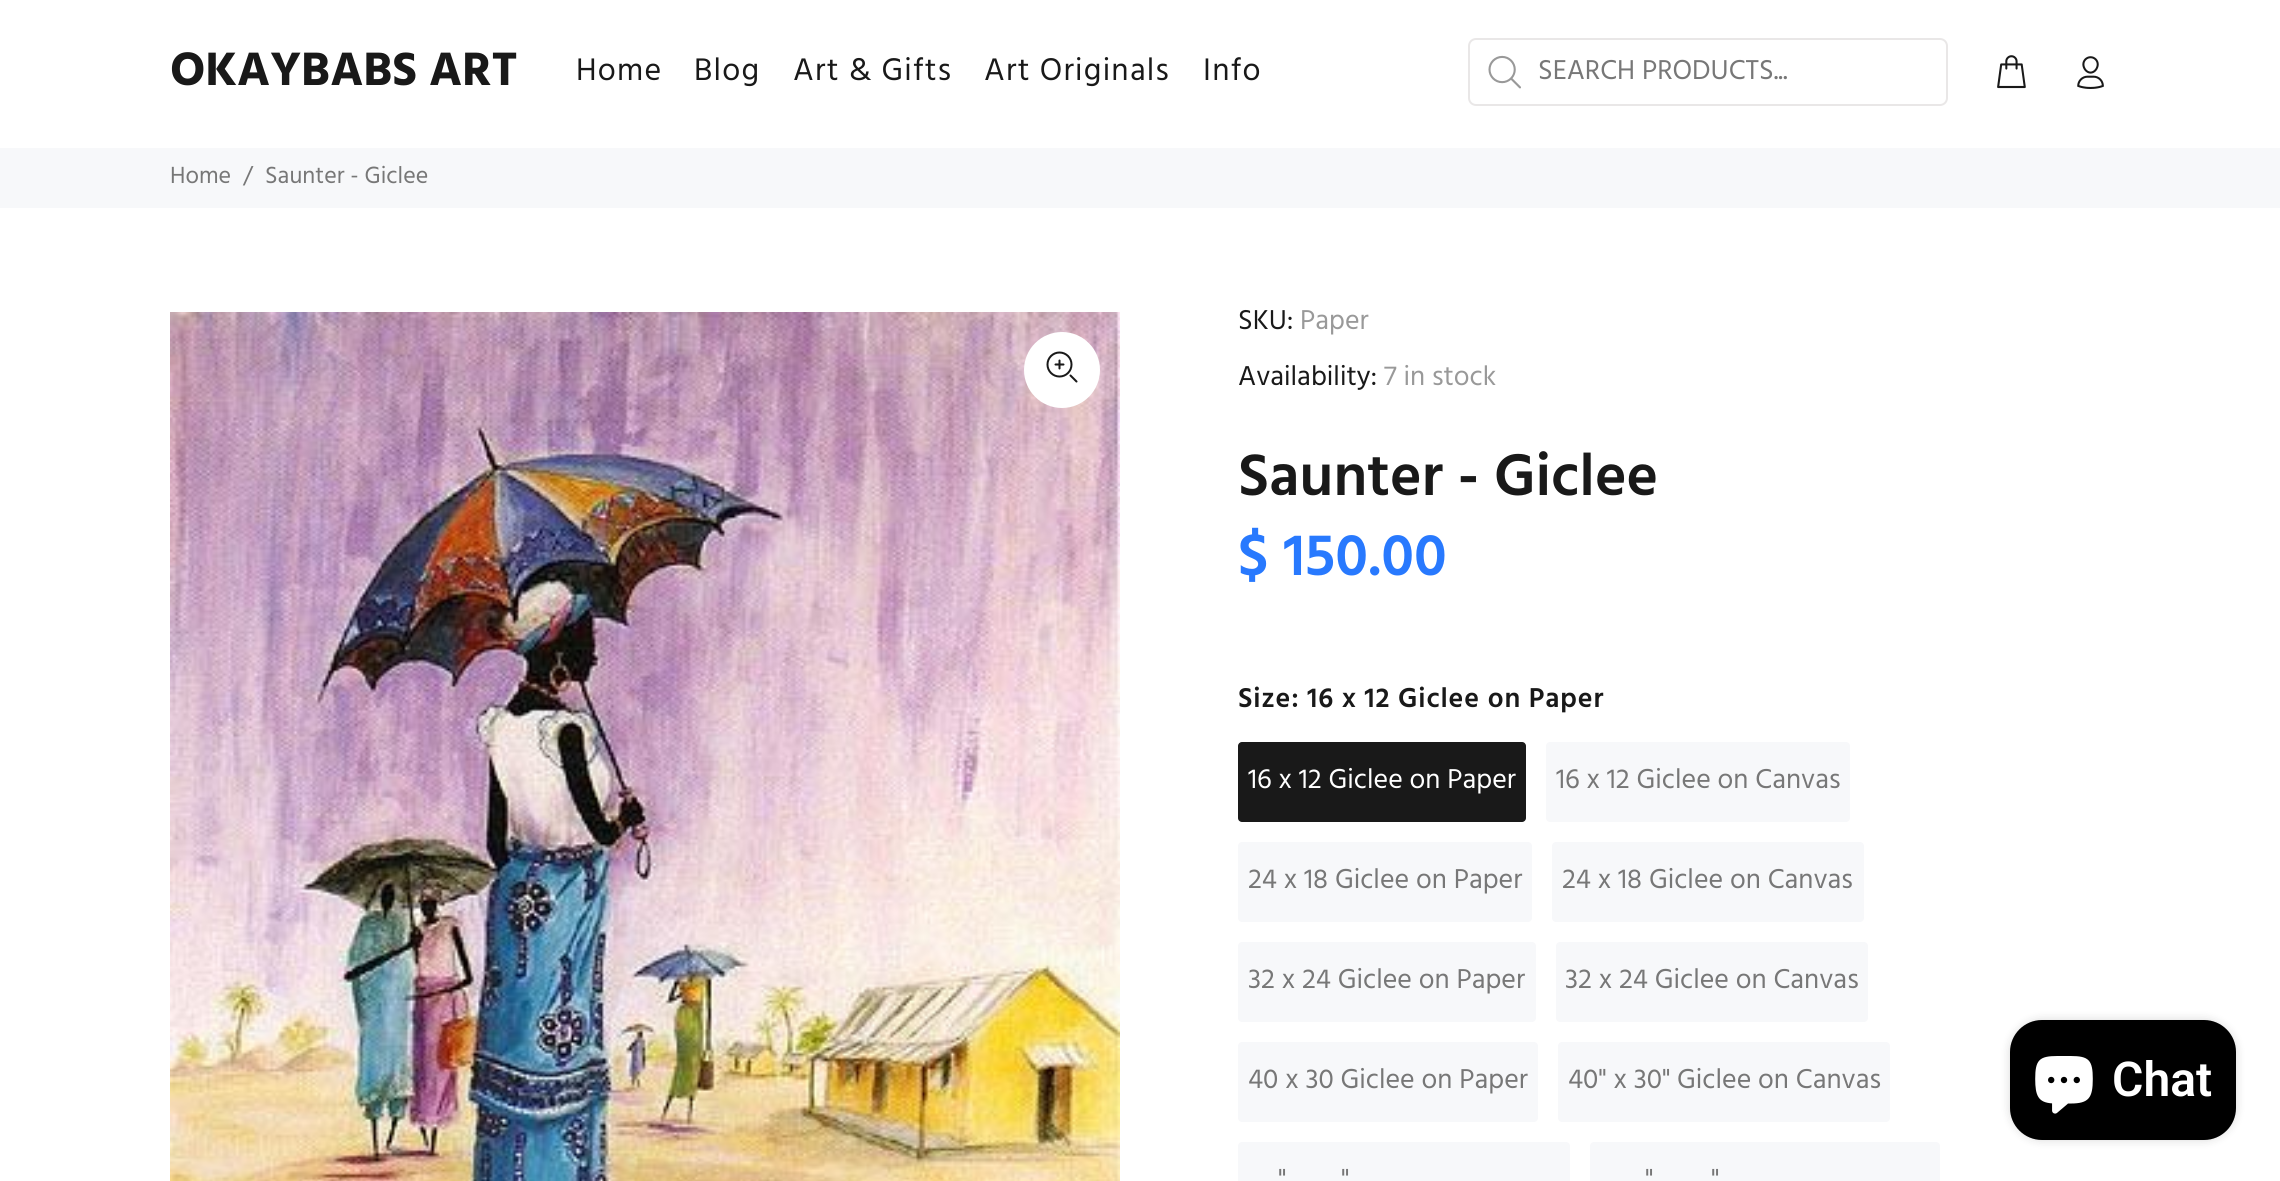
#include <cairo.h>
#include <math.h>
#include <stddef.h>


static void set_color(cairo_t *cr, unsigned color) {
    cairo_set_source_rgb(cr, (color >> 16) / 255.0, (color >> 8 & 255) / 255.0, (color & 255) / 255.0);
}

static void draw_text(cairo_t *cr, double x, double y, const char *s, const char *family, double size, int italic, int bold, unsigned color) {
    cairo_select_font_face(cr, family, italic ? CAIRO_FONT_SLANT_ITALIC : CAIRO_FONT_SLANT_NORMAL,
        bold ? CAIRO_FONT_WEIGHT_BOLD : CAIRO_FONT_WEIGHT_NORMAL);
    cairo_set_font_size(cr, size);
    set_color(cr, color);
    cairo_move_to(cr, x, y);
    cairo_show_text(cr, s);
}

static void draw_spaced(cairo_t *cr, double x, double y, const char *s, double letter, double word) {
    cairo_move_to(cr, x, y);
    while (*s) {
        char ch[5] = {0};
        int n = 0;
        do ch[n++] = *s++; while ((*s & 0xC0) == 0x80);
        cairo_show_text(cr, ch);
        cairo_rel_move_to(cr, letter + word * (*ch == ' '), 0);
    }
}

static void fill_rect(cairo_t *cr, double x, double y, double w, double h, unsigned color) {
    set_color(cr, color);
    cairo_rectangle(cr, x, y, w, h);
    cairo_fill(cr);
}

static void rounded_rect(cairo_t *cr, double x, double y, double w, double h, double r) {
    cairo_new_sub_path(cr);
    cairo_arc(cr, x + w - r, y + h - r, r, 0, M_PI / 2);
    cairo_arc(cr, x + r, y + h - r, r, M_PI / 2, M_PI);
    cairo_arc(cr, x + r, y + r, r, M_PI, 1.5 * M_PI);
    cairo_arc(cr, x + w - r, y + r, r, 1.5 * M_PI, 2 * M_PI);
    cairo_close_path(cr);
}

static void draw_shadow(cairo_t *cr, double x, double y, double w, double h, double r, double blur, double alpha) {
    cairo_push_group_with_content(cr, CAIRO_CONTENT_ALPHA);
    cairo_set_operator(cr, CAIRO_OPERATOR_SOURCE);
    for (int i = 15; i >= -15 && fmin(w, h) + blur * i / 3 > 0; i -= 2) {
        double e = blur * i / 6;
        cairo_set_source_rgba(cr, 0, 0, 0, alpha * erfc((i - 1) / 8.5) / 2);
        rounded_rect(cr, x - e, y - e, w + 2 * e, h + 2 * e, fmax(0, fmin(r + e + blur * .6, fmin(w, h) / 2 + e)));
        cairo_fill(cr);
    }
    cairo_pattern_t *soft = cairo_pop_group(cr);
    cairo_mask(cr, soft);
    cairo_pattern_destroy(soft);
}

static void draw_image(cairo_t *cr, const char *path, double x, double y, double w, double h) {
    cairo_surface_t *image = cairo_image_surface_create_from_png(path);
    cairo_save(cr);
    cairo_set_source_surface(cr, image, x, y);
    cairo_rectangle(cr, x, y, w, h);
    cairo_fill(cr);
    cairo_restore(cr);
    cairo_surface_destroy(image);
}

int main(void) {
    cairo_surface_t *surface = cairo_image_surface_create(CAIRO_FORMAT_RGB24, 2280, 1181);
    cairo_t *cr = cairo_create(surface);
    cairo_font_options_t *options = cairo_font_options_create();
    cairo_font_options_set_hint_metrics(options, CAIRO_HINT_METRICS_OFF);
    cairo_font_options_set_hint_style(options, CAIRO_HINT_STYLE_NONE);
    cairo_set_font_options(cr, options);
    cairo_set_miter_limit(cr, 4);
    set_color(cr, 0xFFFFFF);
    cairo_paint(cr);
    draw_text(cr, 170, 85, "OKAYBABS ART", "Hind", 48, 0, 1, 0x191919);
    cairo_select_font_face(cr, "Hind", CAIRO_FONT_SLANT_NORMAL, CAIRO_FONT_WEIGHT_NORMAL);
    cairo_set_font_size(cr, 32);
    draw_spaced(cr, 576, 80, "Home", 1.25, 0);
    draw_spaced(cr, 694, 80, "Blog", 1.25, 0);
    draw_spaced(cr, 793, 80, "Art & Gifts", 1.25, 0);
    draw_spaced(cr, 984, 80, "Art Originals", 1.25, 0);
    draw_spaced(cr, 1203, 80, "Info", 1.25, 0);
    rounded_rect(cr, 1469, 39, 478, 66, 7);
    set_color(cr, 0xE9E7E7);
    cairo_stroke(cr);
    draw_image(cr, "assets/img1.png", 1488, 55, 33, 34);
    draw_text(cr, 1538, 79, "SEARCH PRODUCTS...", "Hind", 28, 0, 0, 0x777777);
    draw_image(cr, "assets/img2.png", 1997, 55, 29, 34);
    draw_image(cr, "assets/img3.png", 2077, 56, 27, 33);
    fill_rect(cr, 0, 148, 2280, 60, 0xF7F8FA);
    draw_text(cr, 170, 183, "Home", "Hind", 24, 0, 0, 0x777777);
    draw_text(cr, 243, 183, "/", "Hind", 24, 0, 0, 0x777777);
    draw_text(cr, 265, 183, "Saunter - Giclee", "Hind", 24, 0, 0, 0x777777);
    draw_image(cr, "assets/img4.png", 170, 312, 950, 869);
    set_color(cr, 0xFFFFFF);
    cairo_arc(cr, 1062, 370, 38, 0, 2 * M_PI);
    cairo_fill(cr);
    draw_image(cr, "assets/img5.png", 1046, 351, 32, 32);
    draw_text(cr, 1238, 329, "SKU:", "Hind", 28, 0, 0, 0x191919);
    draw_text(cr, 1300, 329, "Paper", "Hind", 28, 0, 0, 0x999999);
    draw_text(cr, 1238, 385, "Availability:", "Hind", 28, 0, 0, 0x191919);
    draw_text(cr, 1384, 385, "7 in stock", "Hind", 28, 0, 0, 0x999999);
    draw_text(cr, 1238, 495, "Saunter - Giclee", "Hind SemiBold", 60, 0, 0, 0x191919);
    draw_text(cr, 1238, 575, "$ 150.00", "Hind SemiBold", 60, 0, 0, 0x2879FE);
    cairo_set_font_size(cr, 28);
    set_color(cr, 0x191919);
    draw_spaced(cr, 1238, 707, "Size: 16 x 12 Giclee on Paper", 0.85, 0);
    rounded_rect(cr, 1238, 742, 288, 80, 4);
    cairo_fill(cr);
    draw_text(cr, 1248, 788, "16 x 12 Giclee on Paper", "Hind", 28, 0, 0, 0xFFFFFF);
    set_color(cr, 0xF7F8FA);
    rounded_rect(cr, 1546, 742, 304, 80, 4);
    cairo_fill(cr);
    draw_text(cr, 1556, 788, "16 x 12 Giclee on Canvas", "Hind", 28, 0, 0, 0x777777);
    set_color(cr, 0xF7F8FA);
    rounded_rect(cr, 1238, 842, 294, 80, 4);
    cairo_fill(cr);
    draw_text(cr, 1248, 888, "24 x 18 Giclee on Paper", "Hind", 28, 0, 0, 0x777777);
    set_color(cr, 0xF7F8FA);
    rounded_rect(cr, 1552, 842, 312, 80, 4);
    cairo_fill(cr);
    draw_text(cr, 1562, 888, "24 x 18 Giclee on Canvas", "Hind", 28, 0, 0, 0x777777);
    set_color(cr, 0xF7F8FA);
    rounded_rect(cr, 1238, 942, 298, 80, 4);
    cairo_fill(cr);
    draw_text(cr, 1248, 988, "32 x 24 Giclee on Paper", "Hind", 28, 0, 0, 0x777777);
    set_color(cr, 0xF7F8FA);
    rounded_rect(cr, 1556, 942, 312, 80, 4);
    cairo_fill(cr);
    draw_text(cr, 1565, 988, "32 x 24 Giclee on Canvas", "Hind", 28, 0, 0, 0x777777);
    set_color(cr, 0xF7F8FA);
    rounded_rect(cr, 1238, 1042, 300, 80, 4);
    cairo_fill(cr);
    draw_text(cr, 1248, 1088, "40 x 30 Giclee on Paper", "Hind", 28, 0, 0, 0x777777);
    set_color(cr, 0xF7F8FA);
    rounded_rect(cr, 1558, 1042, 332, 80, 4);
    cairo_fill(cr);
    draw_text(cr, 1568, 1088, "40\" x 30\" Giclee on Canvas", "Hind", 28, 0, 0, 0x777777);
    set_color(cr, 0xF7F8FA);
    rounded_rect(cr, 1238, 1142, 332, 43, 4);
    cairo_fill(cr);
    draw_text(cr, 1278, 1188, "\"", "Hind", 28, 0, 0, 0x777777);
    draw_text(cr, 1341, 1188, "\"", "Hind", 28, 0, 0, 0x777777);
    set_color(cr, 0xF7F8FA);
    rounded_rect(cr, 1590, 1142, 350, 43, 4);
    cairo_fill(cr);
    draw_text(cr, 1645, 1188, "\"", "Hind", 28, 0, 0, 0x777777);
    draw_text(cr, 1711, 1188, "\"", "Hind", 28, 0, 0, 0x777777);
    set_color(cr, 0x000000);
    draw_shadow(cr, 2010, 1020, 226, 120, 32, 5, 0.15);
    set_color(cr, 0x000000);
    rounded_rect(cr, 2010, 1020, 226, 120, 32);
    cairo_fill(cr);
    draw_image(cr, "assets/img6.png", 2035, 1056, 58, 58);
    draw_text(cr, 2112, 1096, "Chat", "Roboto SemiBold", 48, 0, 0, 0xFFFFFF);
    cairo_surface_write_to_png(surface, "output.png");
    cairo_font_options_destroy(options);
    cairo_destroy(cr);
    cairo_surface_destroy(surface);
    return 0;
}
